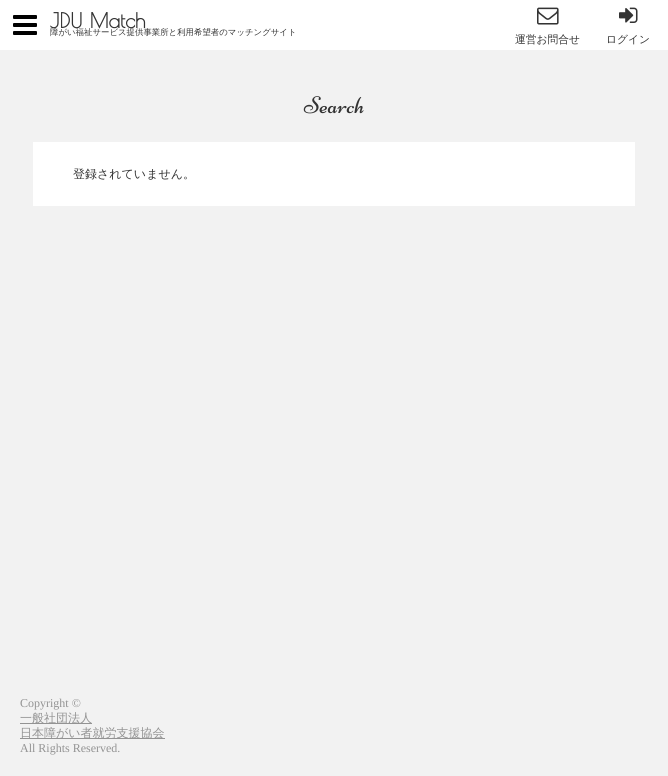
#include <cairo.h>
#include <math.h>
#include <stddef.h>


static void set_color(cairo_t *cr, unsigned color) {
    cairo_set_source_rgb(cr, (color >> 16) / 255.0, (color >> 8 & 255) / 255.0, (color & 255) / 255.0);
}

static void draw_text(cairo_t *cr, double x, double y, const char *s, const char *family, double size, int italic, int bold, unsigned color) {
    cairo_select_font_face(cr, family, italic ? CAIRO_FONT_SLANT_ITALIC : CAIRO_FONT_SLANT_NORMAL,
        bold ? CAIRO_FONT_WEIGHT_BOLD : CAIRO_FONT_WEIGHT_NORMAL);
    cairo_set_font_size(cr, size);
    set_color(cr, color);
    cairo_move_to(cr, x, y);
    cairo_show_text(cr, s);
}

static void fill_rect(cairo_t *cr, double x, double y, double w, double h, unsigned color) {
    set_color(cr, color);
    cairo_rectangle(cr, x, y, w, h);
    cairo_fill(cr);
}

static void draw_image(cairo_t *cr, const char *path, double x, double y, double w, double h) {
    cairo_surface_t *image = cairo_image_surface_create_from_png(path);
    cairo_save(cr);
    cairo_set_source_surface(cr, image, x, y);
    cairo_rectangle(cr, x, y, w, h);
    cairo_fill(cr);
    cairo_restore(cr);
    cairo_surface_destroy(image);
}

int main(void) {
    cairo_surface_t *surface = cairo_image_surface_create(CAIRO_FORMAT_RGB24, 668, 776);
    cairo_t *cr = cairo_create(surface);
    cairo_font_options_t *options = cairo_font_options_create();
    cairo_font_options_set_hint_metrics(options, CAIRO_HINT_METRICS_OFF);
    cairo_font_options_set_hint_style(options, CAIRO_HINT_STYLE_NONE);
    cairo_set_font_options(cr, options);
    cairo_set_miter_limit(cr, 4);
    set_color(cr, 0xF2F2F2);
    cairo_paint(cr);
    fill_rect(cr, 0, 0, 668, 50, 0xFFFFFF);
    draw_image(cr, "assets/img1.png", 13, 15, 24, 20);
    draw_text(cr, 50, 28, "JDU Match", "Poiret One", 20.5, 0, 1, 0x333333);
    draw_text(cr, 50, 35, "障がい福祉サービス提供事業所と利用希望者のマッチングサイト", "WenQuanYi Zen Hei Medium", 8.4, 0, 0, 0x333333);
    draw_image(cr, "assets/img2.png", 537, 7, 22, 18);
    draw_text(cr, 515, 43, "運営お問合せ", "WenQuanYi Zen Hei Medium", 10.75, 0, 0, 0x333333);
    draw_image(cr, "assets/img3.png", 619, 7, 19, 16);
    draw_text(cr, 606, 43, "ログイン", "WenQuanYi Zen Hei Medium", 10.75, 0, 0, 0x333333);
    draw_image(cr, "assets/img4.png", 303, 96, 61, 18);
    fill_rect(cr, 33, 142, 602, 64, 0xFFFFFF);
    draw_text(cr, 73, 178, "登録されていません。", "WenQuanYi Zen Hei Medium", 12, 0, 0, 0x333333);
    draw_text(cr, 20, 707, "Copyright ©", "Liberation Serif", 12, 0, 0, 0x939393);
    fill_rect(cr, 20, 723, 72, 1, 0x939393);
    draw_text(cr, 20, 722, "一般社団法人", "WenQuanYi Zen Hei Medium", 12, 0, 0, 0x939393);
    fill_rect(cr, 20, 738, 145, 1, 0x939393);
    draw_text(cr, 20, 737, "日本障がい者就労支援協会", "WenQuanYi Zen Hei Medium", 12, 0, 0, 0x939393);
    draw_text(cr, 20, 752, "All Rights Reserved.", "Liberation Serif", 12, 0, 0, 0x939393);
    cairo_surface_write_to_png(surface, "output.png");
    cairo_font_options_destroy(options);
    cairo_destroy(cr);
    cairo_surface_destroy(surface);
    return 0;
}
